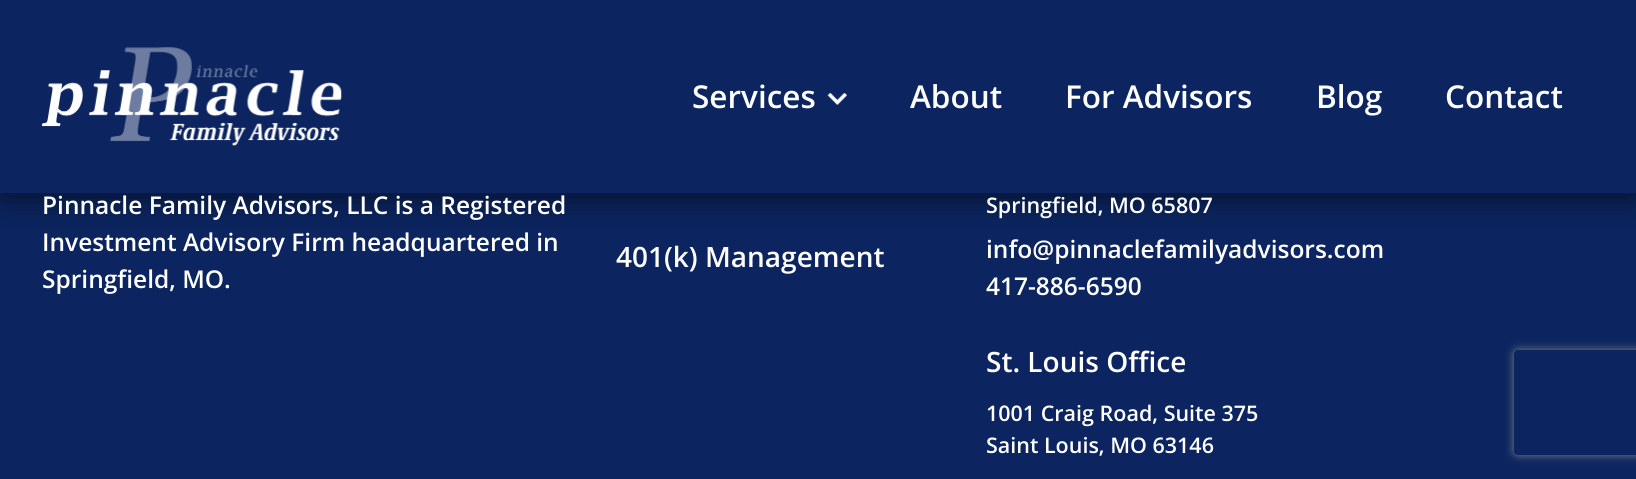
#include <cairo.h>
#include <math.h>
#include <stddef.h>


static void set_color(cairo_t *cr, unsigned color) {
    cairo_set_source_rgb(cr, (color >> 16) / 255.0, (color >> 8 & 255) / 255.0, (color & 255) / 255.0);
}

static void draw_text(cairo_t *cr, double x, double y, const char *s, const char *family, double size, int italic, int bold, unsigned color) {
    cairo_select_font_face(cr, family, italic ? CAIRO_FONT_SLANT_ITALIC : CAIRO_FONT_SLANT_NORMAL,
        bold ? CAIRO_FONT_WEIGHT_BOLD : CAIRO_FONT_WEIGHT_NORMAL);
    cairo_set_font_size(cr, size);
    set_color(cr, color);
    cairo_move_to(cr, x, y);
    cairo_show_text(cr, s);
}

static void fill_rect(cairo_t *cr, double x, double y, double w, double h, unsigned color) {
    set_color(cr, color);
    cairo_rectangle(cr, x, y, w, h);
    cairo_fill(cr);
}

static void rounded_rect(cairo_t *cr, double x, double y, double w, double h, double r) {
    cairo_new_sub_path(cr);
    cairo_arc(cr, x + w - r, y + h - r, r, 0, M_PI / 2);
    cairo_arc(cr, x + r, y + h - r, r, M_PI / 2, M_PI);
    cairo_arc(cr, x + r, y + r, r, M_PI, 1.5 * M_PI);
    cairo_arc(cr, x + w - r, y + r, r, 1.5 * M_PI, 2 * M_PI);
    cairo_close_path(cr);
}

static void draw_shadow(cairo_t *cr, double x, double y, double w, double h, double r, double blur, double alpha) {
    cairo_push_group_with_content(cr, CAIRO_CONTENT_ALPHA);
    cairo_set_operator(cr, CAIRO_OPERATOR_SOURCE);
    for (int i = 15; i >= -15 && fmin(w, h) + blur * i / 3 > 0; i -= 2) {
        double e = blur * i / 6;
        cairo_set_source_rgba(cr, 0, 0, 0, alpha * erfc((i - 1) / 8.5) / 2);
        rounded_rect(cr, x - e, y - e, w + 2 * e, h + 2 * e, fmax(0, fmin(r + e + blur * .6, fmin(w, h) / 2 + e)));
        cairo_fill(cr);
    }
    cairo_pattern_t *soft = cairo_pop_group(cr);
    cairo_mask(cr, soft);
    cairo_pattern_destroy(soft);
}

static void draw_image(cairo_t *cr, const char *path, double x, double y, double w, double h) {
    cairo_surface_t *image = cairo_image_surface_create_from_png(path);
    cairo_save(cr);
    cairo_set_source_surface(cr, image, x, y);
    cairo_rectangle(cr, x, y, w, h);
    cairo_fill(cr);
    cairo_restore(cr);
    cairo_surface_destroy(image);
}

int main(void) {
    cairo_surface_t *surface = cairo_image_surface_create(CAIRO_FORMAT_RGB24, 1636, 479);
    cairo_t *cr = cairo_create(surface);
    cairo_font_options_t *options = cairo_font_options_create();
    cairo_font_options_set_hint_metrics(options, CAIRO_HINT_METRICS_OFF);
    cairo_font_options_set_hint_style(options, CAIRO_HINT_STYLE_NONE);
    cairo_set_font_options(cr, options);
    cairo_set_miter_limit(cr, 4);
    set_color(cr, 0x0C2560);
    cairo_paint(cr);
    set_color(cr, 0x000000);
    draw_shadow(cr, 2, 7, 1633, 189, 0, 17.5, 0.6);
    fill_rect(cr, 0, 0, 1636, 193, 0x0C2560);
    draw_image(cr, "assets/img1.png", 42, 47, 300, 99);
    draw_text(cr, 692, 108, "Services", "Open Sans SemiBold", 31.5, 0, 0, 0xFFFFFF);
    draw_image(cr, "assets/img2.png", 827, 93, 20, 12);
    draw_text(cr, 910, 108, "About", "Open Sans SemiBold", 31.5, 0, 0, 0xFFFFFF);
    draw_text(cr, 1065, 108, "For Advisors", "Open Sans SemiBold", 31.5, 0, 0, 0xFFFFFF);
    draw_text(cr, 1316, 108, "Blog", "Open Sans SemiBold", 31.5, 0, 0, 0xFFFFFF);
    draw_text(cr, 1445, 108, "Contact", "Open Sans SemiBold", 31.5, 0, 0, 0xFFFFFF);
    draw_text(cr, 42, 214, "Pinnacle Family Advisors, LLC is a Registered", "Open Sans SemiBold", 24.5, 0, 0, 0xFFFFFF);
    draw_text(cr, 42, 251, "Investment Advisory Firm headquartered in", "Open Sans SemiBold", 24.5, 0, 0, 0xFFFFFF);
    draw_text(cr, 42, 288, "Springfield, MO.", "Open Sans SemiBold", 24.5, 0, 0, 0xFFFFFF);
    draw_text(cr, 616, 267, "401(k) Management", "Open Sans SemiBold", 28, 0, 0, 0xFFFFFF);
    draw_text(cr, 986, 213, "Springfield, MO 65807", "Open Sans SemiBold", 21.5, 0, 0, 0xFFFFFF);
    draw_text(cr, 986, 258, "info@pinnaclefamilyadvisors.com", "Open Sans SemiBold", 24.5, 0, 0, 0xFFFFFF);
    draw_text(cr, 986, 295, "417-886-6590", "Open Sans SemiBold", 24.5, 0, 0, 0xFFFFFF);
    draw_text(cr, 986, 372, "St. Louis Office", "Open Sans SemiBold", 28, 0, 0, 0xFFFFFF);
    draw_text(cr, 986, 421, "1001 Craig Road, Suite 375", "Open Sans SemiBold", 21.5, 0, 0, 0xFFFFFF);
    draw_text(cr, 986, 453, "Saint Louis, MO 63146", "Open Sans SemiBold", 21.5, 0, 0, 0xFFFFFF);
    cairo_save(cr);
    cairo_set_fill_rule(cr, CAIRO_FILL_RULE_EVEN_ODD);
    cairo_new_path(cr);
    cairo_move_to(cr, 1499, 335);
    cairo_line_to(cr, 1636, 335);
    cairo_line_to(cr, 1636, 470);
    cairo_line_to(cr, 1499, 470);
    cairo_close_path(cr);
    cairo_move_to(cr, 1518, 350);
    cairo_line_to(cr, 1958, 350);
    cairo_curve_to(cr, 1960, 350, 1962, 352, 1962, 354);
    cairo_line_to(cr, 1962, 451);
    cairo_curve_to(cr, 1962, 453, 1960, 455, 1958, 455);
    cairo_line_to(cr, 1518, 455);
    cairo_curve_to(cr, 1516, 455, 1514, 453, 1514, 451);
    cairo_line_to(cr, 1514, 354);
    cairo_curve_to(cr, 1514, 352, 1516, 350, 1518, 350);
    cairo_close_path(cr);
    cairo_clip(cr);
    set_color(cr, 0x808080);
    draw_shadow(cr, 1514, 350, 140, 105, 4, 4.5, 1);
    cairo_restore(cr);
    cairo_surface_write_to_png(surface, "output.png");
    cairo_font_options_destroy(options);
    cairo_destroy(cr);
    cairo_surface_destroy(surface);
    return 0;
}
